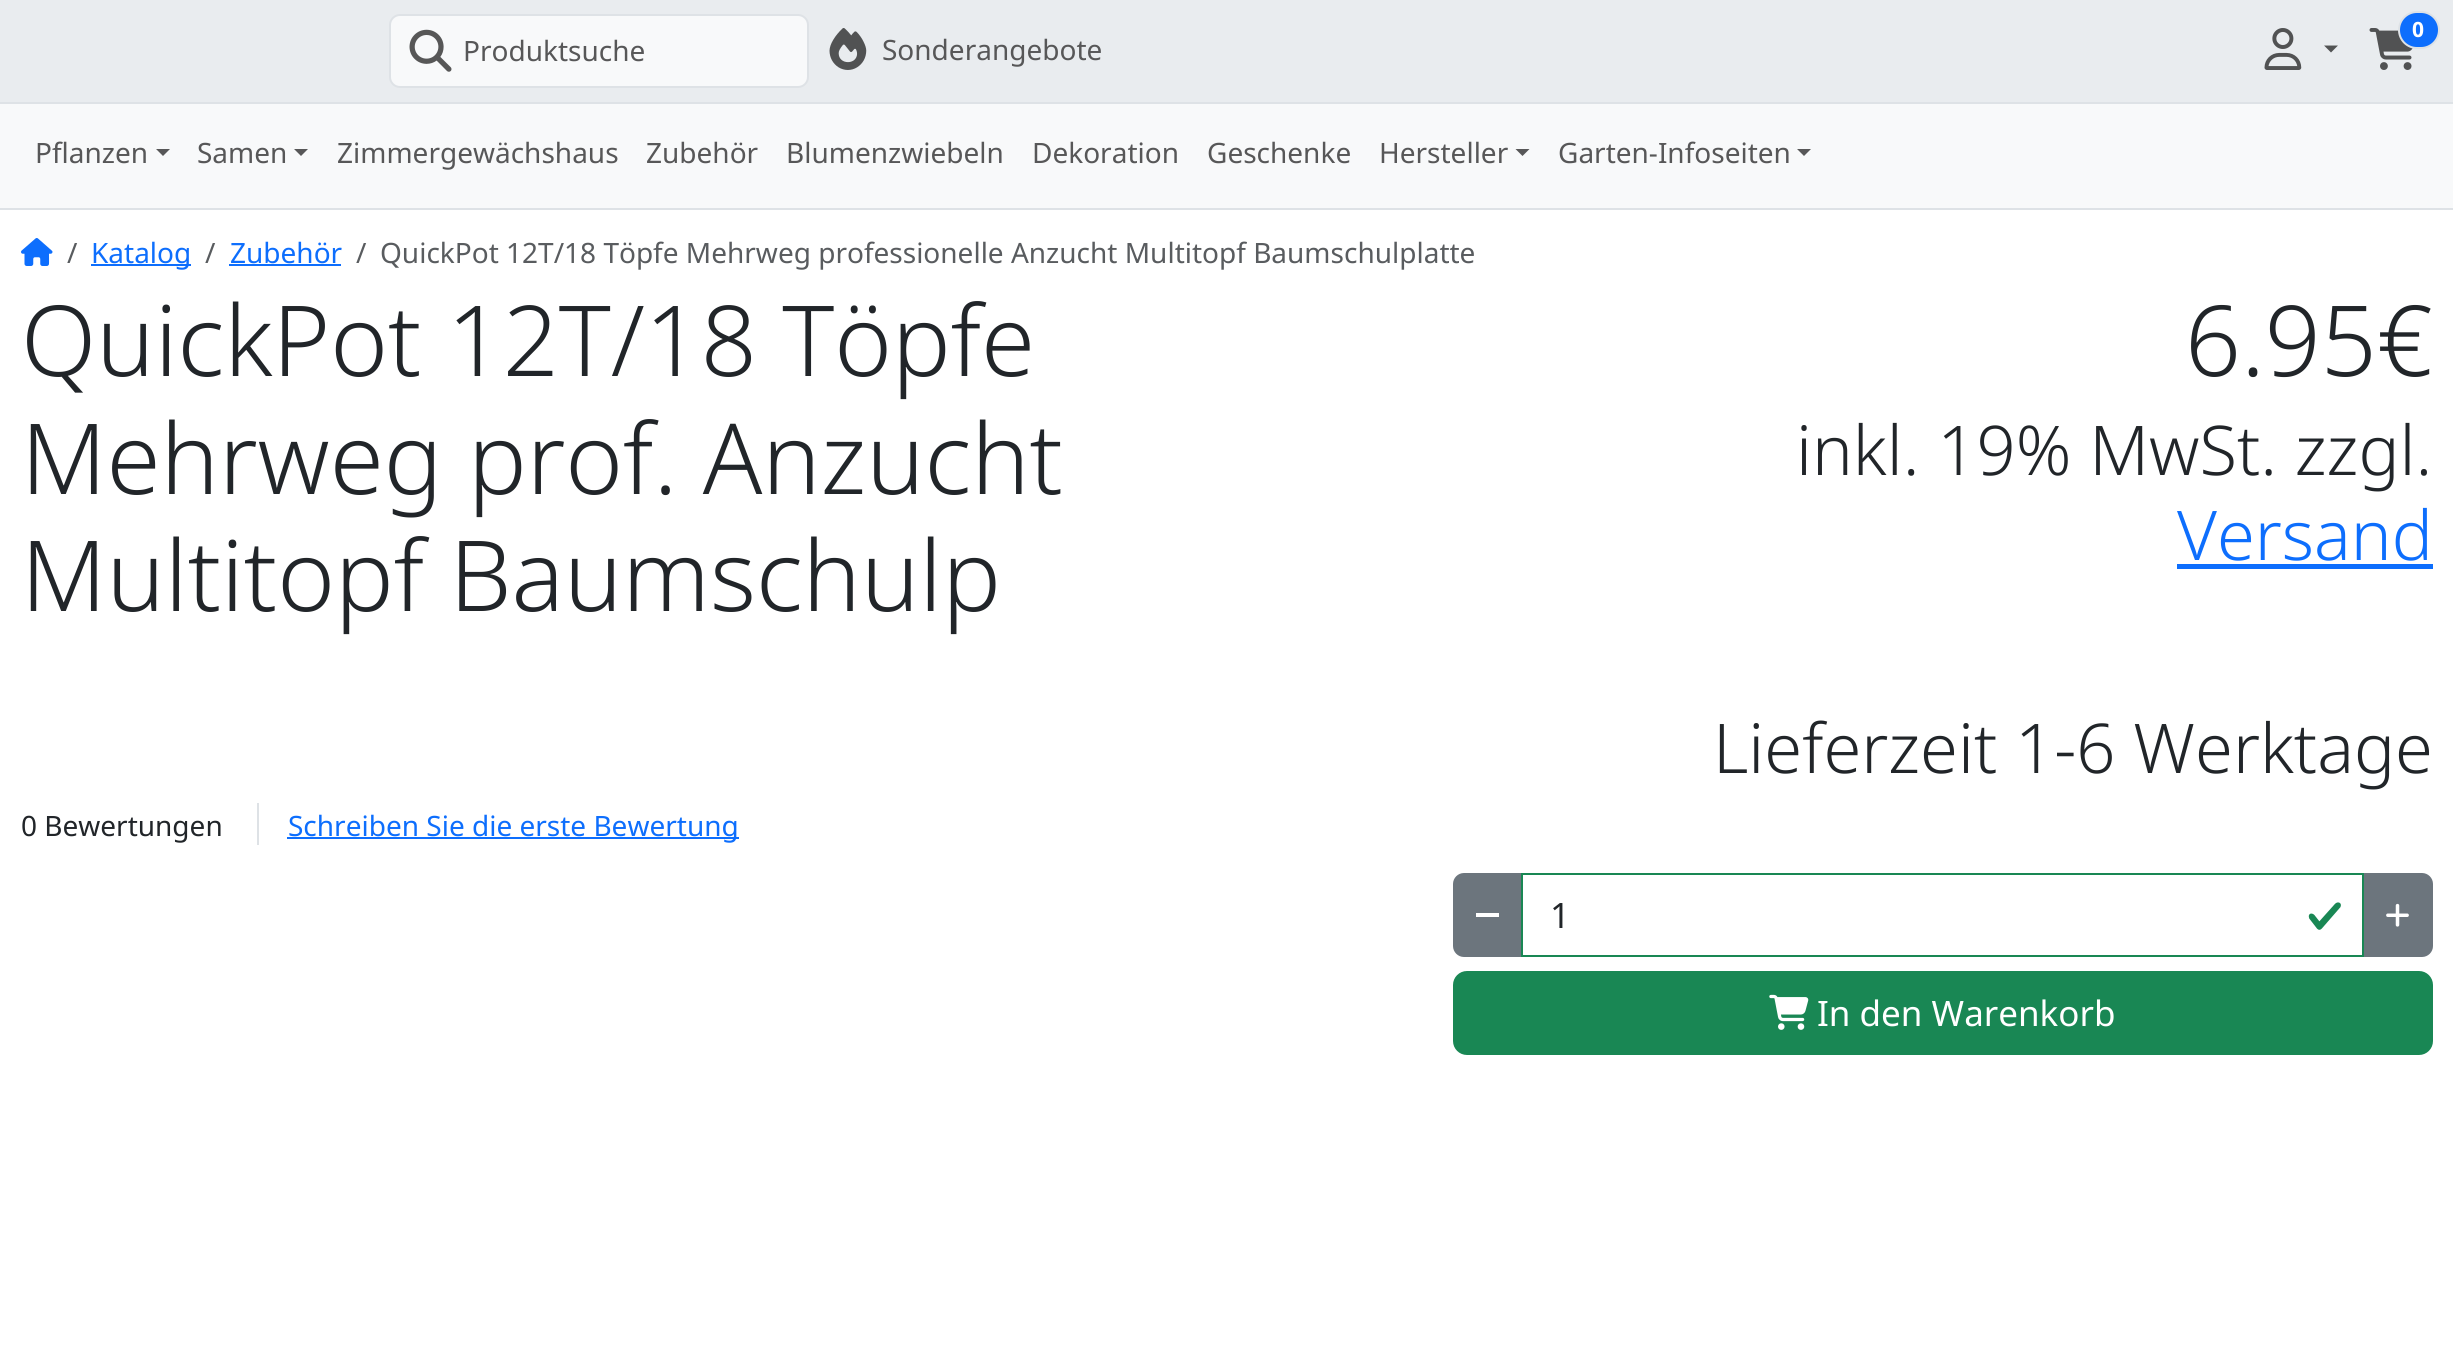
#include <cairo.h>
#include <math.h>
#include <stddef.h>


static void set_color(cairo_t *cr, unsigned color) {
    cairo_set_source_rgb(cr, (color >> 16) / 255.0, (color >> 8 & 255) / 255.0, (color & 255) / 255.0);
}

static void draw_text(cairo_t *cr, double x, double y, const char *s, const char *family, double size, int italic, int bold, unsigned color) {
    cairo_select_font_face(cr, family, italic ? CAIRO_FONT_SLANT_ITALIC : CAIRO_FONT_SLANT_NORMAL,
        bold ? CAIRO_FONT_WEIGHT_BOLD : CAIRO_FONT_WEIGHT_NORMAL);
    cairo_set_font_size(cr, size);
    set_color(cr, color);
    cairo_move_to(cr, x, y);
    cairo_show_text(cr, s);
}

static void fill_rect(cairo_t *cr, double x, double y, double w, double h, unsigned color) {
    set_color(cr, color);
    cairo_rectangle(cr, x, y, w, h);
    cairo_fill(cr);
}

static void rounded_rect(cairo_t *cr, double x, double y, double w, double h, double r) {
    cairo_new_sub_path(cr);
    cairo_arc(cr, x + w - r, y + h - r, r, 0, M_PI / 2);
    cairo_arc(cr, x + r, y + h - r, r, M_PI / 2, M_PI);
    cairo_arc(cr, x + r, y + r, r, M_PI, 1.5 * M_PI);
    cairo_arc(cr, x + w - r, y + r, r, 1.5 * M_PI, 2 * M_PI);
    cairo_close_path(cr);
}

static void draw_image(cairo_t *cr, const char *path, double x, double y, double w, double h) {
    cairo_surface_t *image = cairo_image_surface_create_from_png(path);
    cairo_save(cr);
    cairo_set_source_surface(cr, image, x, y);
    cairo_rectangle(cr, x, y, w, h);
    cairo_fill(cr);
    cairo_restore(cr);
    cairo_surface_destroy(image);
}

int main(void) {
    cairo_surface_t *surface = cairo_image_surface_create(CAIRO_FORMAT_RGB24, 2453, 1363);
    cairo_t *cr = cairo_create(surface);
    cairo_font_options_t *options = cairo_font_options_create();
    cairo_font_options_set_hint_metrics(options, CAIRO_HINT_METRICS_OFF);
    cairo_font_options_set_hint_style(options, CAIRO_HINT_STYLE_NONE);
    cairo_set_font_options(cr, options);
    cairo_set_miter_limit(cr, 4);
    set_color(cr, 0xFFFFFF);
    cairo_paint(cr);
    fill_rect(cr, 0, 0, 2453, 102, 0xE9ECEF);
    fill_rect(cr, 0, 102, 2453, 2, 0xDEE2E6);
    draw_image(cr, "assets/img1.png", 2264, 28, 38, 42);
    set_color(cr, 0x525354);
    cairo_new_path(cr);
    cairo_move_to(cr, 2324, 45.5);
    cairo_line_to(cr, 2338, 45.5);
    cairo_line_to(cr, 2331, 52.5);
    cairo_close_path(cr);
    cairo_fill(cr);
    draw_image(cr, "assets/img2.png", 2369, 28, 44, 42);
    set_color(cr, 0x0D6EFD);
    rounded_rect(cr, 2399, 12, 40, 36, 18);
    cairo_fill_preserve(cr);
    set_color(cr, 0xDEE2E6);
    cairo_stroke(cr);
    draw_text(cr, 2412, 37, "0", "Noto Sans", 21, 0, 1, 0xFFFFFF);
    set_color(cr, 0xF8F9FA);
    rounded_rect(cr, 390, 15, 418, 72, 10);
    cairo_fill_preserve(cr);
    set_color(cr, 0xDEE2E6);
    cairo_stroke(cr);
    draw_image(cr, "assets/img3.png", 409, 29, 43, 43);
    draw_text(cr, 463, 61, "Produktsuche", "Noto Sans", 28, 0, 0, 0x575758);
    draw_image(cr, "assets/img4.png", 829, 28, 38, 42);
    draw_text(cr, 882, 60, "Sonderangebote", "Noto Sans", 28, 0, 0, 0x575758);
    fill_rect(cr, 0, 104, 2453, 104, 0xF8F9FA);
    fill_rect(cr, 0, 208, 2453, 2, 0xDEE2E6);
    draw_text(cr, 35, 163, "Pflanzen", "Noto Sans", 28, 0, 0, 0x575758);
    cairo_new_path(cr);
    cairo_move_to(cr, 156, 149);
    cairo_line_to(cr, 170, 149);
    cairo_line_to(cr, 163, 156);
    cairo_close_path(cr);
    cairo_fill(cr);
    draw_text(cr, 197, 163, "Samen", "Noto Sans", 28, 0, 0, 0x575758);
    cairo_new_path(cr);
    cairo_move_to(cr, 294, 149);
    cairo_line_to(cr, 308, 149);
    cairo_line_to(cr, 301, 156);
    cairo_close_path(cr);
    cairo_fill(cr);
    draw_text(cr, 337, 163, "Zimmergewächshaus", "Noto Sans", 28, 0, 0, 0x575758);
    draw_text(cr, 646, 163, "Zubehör", "Noto Sans", 28, 0, 0, 0x575758);
    draw_text(cr, 786, 163, "Blumenzwiebeln", "Noto Sans", 28, 0, 0, 0x575758);
    draw_text(cr, 1032, 163, "Dekoration", "Noto Sans", 28, 0, 0, 0x575758);
    draw_text(cr, 1207, 163, "Geschenke", "Noto Sans", 28, 0, 0, 0x575758);
    draw_text(cr, 1379, 163, "Hersteller", "Noto Sans", 28, 0, 0, 0x575758);
    cairo_new_path(cr);
    cairo_move_to(cr, 1515.5, 149);
    cairo_line_to(cr, 1529.5, 149);
    cairo_line_to(cr, 1522.5, 156);
    cairo_close_path(cr);
    cairo_fill(cr);
    draw_text(cr, 1558, 163, "Garten-Infoseiten", "Noto Sans", 28, 0, 0, 0x575758);
    cairo_new_path(cr);
    cairo_move_to(cr, 1797, 149);
    cairo_line_to(cr, 1811, 149);
    cairo_line_to(cr, 1804, 156);
    cairo_close_path(cr);
    cairo_fill(cr);
    draw_image(cr, "assets/img5.png", 21, 238, 32, 28);
    draw_text(cr, 67, 263, "/", "Noto Sans", 28, 0, 0, 0x595C5F);
    fill_rect(cr, 91, 264, 100, 2, 0x0D6EFD);
    draw_text(cr, 91, 263, "Katalog", "Noto Sans", 28, 0, 0, 0x0D6EFD);
    draw_text(cr, 205, 263, "/", "Noto Sans", 28, 0, 0, 0x595C5F);
    draw_text(cr, 230, 263, "Zubehör", "Noto Sans", 28, 0, 0, 0x0D6EFD);
    fill_rect(cr, 229, 264, 112, 2, 0x0D6EFD);
    draw_text(cr, 356, 263, "/", "Noto Sans", 28, 0, 0, 0x595C5F);
    draw_text(cr, 380, 263, "QuickPot 12T/18 Töpfe Mehrweg professionelle Anzucht Multitopf Baumschulplatte", "Noto Sans", 28, 0, 0, 0x595C5F);
    draw_text(cr, 21, 376, "QuickPot 12T/18 Töpfe", "Noto Sans Light", 98, 0, 0, 0x212529);
    draw_text(cr, 21, 494, "Mehrweg prof. Anzucht", "Noto Sans Light", 98, 0, 0, 0x212529);
    draw_text(cr, 21, 611, "Multitopf Baumschulp", "Noto Sans Light", 98, 0, 0, 0x212529);
    draw_text(cr, 2185, 376, "6.95€", "Noto Sans Light", 98, 0, 0, 0x212529);
    draw_text(cr, 1796, 475, "inkl. 19% MwSt. zzgl.", "Noto Sans Light", 68.6, 0, 0, 0x212529);
    draw_text(cr, 2177, 560, "Versand", "Noto Sans Light", 68.6, 0, 0, 0x0D6EFD);
    fill_rect(cr, 2177, 564, 256, 5, 0x0D6EFD);
    draw_text(cr, 1713, 773, "Lieferzeit 1-6 Werktage", "Noto Sans Light", 68.6, 0, 0, 0x212529);
    draw_text(cr, 21, 836, "0 Bewertungen", "Noto Sans", 28, 0, 0, 0x212529);
    fill_rect(cr, 257, 803, 2, 42, 0xDEE2E6);
    fill_rect(cr, 287, 837, 452, 2, 0x0D6EFD);
    draw_text(cr, 288, 836, "Schreiben Sie die erste Bewertung", "Noto Sans", 28, 0, 0, 0x0D6EFD);
    set_color(cr, 0x6C757D);
    cairo_new_path(cr);
    cairo_move_to(cr, 1464, 874);
    cairo_line_to(cr, 1522, 874);
    cairo_line_to(cr, 1522, 956);
    cairo_line_to(cr, 1464, 956);
    cairo_curve_to(cr, 1458.5, 956, 1454, 951.5, 1454, 946);
    cairo_line_to(cr, 1454, 884);
    cairo_curve_to(cr, 1454, 878.5, 1458.5, 874, 1464, 874);
    cairo_close_path(cr);
    cairo_fill_preserve(cr);
    cairo_stroke(cr);
    fill_rect(cr, 1476, 913, 23, 4, 0xFFFFFF);
    draw_image(cr, "assets/img6.png", 2308, 902, 33, 28);
    set_color(cr, 0x6C757D);
    cairo_new_path(cr);
    cairo_move_to(cr, 2364, 874);
    cairo_line_to(cr, 2422, 874);
    cairo_curve_to(cr, 2427.5, 874, 2432, 878.5, 2432, 884);
    cairo_line_to(cr, 2432, 946);
    cairo_curve_to(cr, 2432, 951.5, 2427.5, 956, 2422, 956);
    cairo_line_to(cr, 2364, 956);
    cairo_close_path(cr);
    cairo_fill_preserve(cr);
    cairo_stroke(cr);
    cairo_rectangle(cr, 1522, 874, 841, 82);
    set_color(cr, 0x198754);
    cairo_stroke(cr);
    draw_text(cr, 1550, 928, "1", "Noto Sans", 35, 0, 0, 0x212529);
    draw_image(cr, "assets/img7.png", 2386, 903, 23, 24);
    set_color(cr, 0x198754);
    rounded_rect(cr, 1454, 972, 978, 82, 13);
    cairo_fill_preserve(cr);
    cairo_stroke(cr);
    draw_image(cr, "assets/img8.png", 1769, 994, 40, 36);
    draw_text(cr, 1817, 1026, "In den Warenkorb", "Noto Sans", 35, 0, 0, 0xFFFFFF);
    cairo_surface_write_to_png(surface, "output.png");
    cairo_font_options_destroy(options);
    cairo_destroy(cr);
    cairo_surface_destroy(surface);
    return 0;
}
